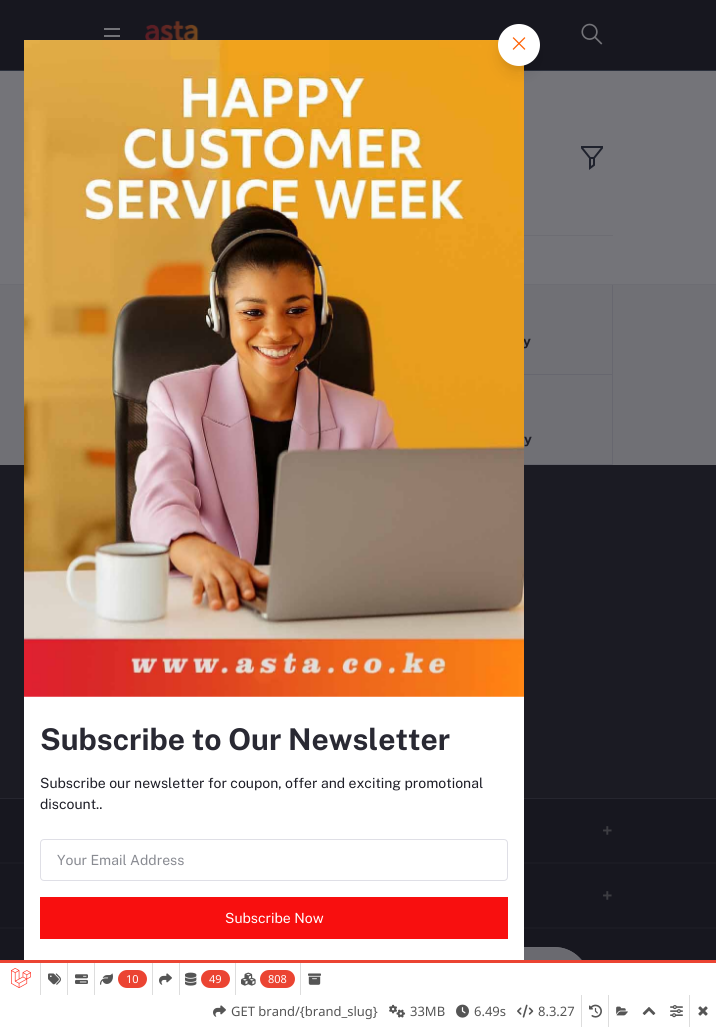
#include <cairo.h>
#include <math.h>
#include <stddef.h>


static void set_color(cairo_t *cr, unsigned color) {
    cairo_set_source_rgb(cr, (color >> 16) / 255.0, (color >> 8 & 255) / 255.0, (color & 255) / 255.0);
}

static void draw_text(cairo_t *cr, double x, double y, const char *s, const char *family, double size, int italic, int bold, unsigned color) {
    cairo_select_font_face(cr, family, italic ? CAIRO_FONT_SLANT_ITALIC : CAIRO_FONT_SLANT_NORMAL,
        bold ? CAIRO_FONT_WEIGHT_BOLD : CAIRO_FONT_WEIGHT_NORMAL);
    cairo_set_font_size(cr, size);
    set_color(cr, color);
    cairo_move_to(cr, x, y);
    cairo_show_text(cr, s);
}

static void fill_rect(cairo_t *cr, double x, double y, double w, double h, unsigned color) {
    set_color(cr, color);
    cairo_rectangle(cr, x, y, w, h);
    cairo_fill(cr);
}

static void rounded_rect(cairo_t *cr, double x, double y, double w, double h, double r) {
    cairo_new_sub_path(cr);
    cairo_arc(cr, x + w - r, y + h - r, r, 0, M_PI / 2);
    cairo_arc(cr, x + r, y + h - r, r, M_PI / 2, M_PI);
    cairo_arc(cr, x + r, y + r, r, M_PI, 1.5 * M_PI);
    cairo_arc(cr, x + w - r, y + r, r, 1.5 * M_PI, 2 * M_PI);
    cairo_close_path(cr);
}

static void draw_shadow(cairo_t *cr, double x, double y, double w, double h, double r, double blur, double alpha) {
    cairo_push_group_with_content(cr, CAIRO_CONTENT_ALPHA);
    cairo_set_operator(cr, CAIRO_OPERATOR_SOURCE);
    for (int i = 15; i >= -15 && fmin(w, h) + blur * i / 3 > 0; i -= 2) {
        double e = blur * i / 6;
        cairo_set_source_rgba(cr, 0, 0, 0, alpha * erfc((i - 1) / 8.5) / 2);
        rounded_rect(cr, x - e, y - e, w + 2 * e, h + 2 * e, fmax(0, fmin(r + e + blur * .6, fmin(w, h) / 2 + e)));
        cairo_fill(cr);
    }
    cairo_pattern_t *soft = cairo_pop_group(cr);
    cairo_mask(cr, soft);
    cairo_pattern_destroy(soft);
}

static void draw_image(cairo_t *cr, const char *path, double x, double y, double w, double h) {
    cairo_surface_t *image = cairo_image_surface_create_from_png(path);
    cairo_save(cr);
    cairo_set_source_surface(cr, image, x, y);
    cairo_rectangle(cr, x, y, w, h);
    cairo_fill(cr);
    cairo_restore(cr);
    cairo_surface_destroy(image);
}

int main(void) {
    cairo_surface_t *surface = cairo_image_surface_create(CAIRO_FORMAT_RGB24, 716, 1027);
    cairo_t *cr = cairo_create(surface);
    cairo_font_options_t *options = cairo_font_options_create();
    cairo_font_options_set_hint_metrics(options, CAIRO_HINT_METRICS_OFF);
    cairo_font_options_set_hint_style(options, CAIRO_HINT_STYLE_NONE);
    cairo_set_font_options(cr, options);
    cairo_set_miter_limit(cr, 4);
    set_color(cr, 0x747479);
    cairo_paint(cr);
    fill_rect(cr, 0, 0, 716, 70, 0x17171F);
    fill_rect(cr, 0, 70, 716, 1, 0x2B303C);
    fill_rect(cr, 0, 285, 716, 180, 0x707075);
    fill_rect(cr, 0, 284, 716, 1, 0x6D6D73);
    draw_text(cr, 523, 346, "y", "Public Sans", 14, 0, 1, 0x1E1E27);
    fill_rect(cr, 0, 465, 716, 333, 0x1B1B23);
    fill_rect(cr, 0, 798, 716, 1, 0x26262F);
    fill_rect(cr, 0, 862, 716, 67, 0x1B1B23);
    fill_rect(cr, 0, 799, 716, 63, 0x17171F);
    fill_rect(cr, 0, 864, 716, 63, 0x17171F);
    fill_rect(cr, 0, 929, 716, 31, 0x17171F);
    cairo_set_source_rgba(cr, 0.455, 0.455, 0.475, 0.9);
    rounded_rect(cr, 127, 947, 463, 72, 36);
    cairo_fill(cr);
    cairo_new_path(cr);
    cairo_move_to(cr, 138, 958);
    cairo_curve_to(cr, 144.5, 951, 153.5, 947.5, 163, 947.5);
    cairo_line_to(cr, 554, 947.5);
    cairo_curve_to(cr, 563.5, 947.5, 572.5, 951, 579, 958);
    set_color(cr, 0x6D6D73);
    cairo_set_line_width(cr, 1);
    cairo_stroke(cr);
    cairo_new_path(cr);
    cairo_move_to(cr, 579, 958);
    cairo_curve_to(cr, 587.5, 966, 591, 978.5, 589, 990);
    cairo_curve_to(cr, 585.5, 1006.5, 570.5, 1018.5, 554, 1018.5);
    cairo_line_to(cr, 163, 1018.5);
    cairo_curve_to(cr, 146.5, 1018.5, 131.5, 1006.5, 128, 990);
    cairo_curve_to(cr, 126, 978.5, 129.5, 966, 138, 958);
    set_color(cr, 0x67676F);
    cairo_stroke(cr);
    fill_rect(cr, 24, 40, 500, 920, 0xFFFFFF);
    draw_image(cr, "assets/img2.png", 24, 40, 500, 657);
    set_color(cr, 0x000000);
    draw_shadow(cr, 500, 30, 38, 38, 19, 3, 0.05);
    draw_shadow(cr, 501, 37, 36, 36, 18, 7.5, 0.1);
    set_color(cr, 0xFFFFFF);
    cairo_arc(cr, 519, 45, 21, 0, 2 * M_PI);
    cairo_fill(cr);
    draw_image(cr, "assets/img1.png", 512, 37, 14, 13);
    draw_text(cr, 40, 750, "Subscribe to Our Newsletter", "Public Sans", 30, 0, 1, 0x292933);
    draw_text(cr, 40, 788, "Subscribe our newsletter for coupon, offer and exciting promotional", "Public Sans", 14, 0, 0, 0x1E1E27);
    draw_text(cr, 40, 809, "discount..", "Public Sans", 14, 0, 0, 0x1E1E27);
    rounded_rect(cr, 40.5, 839.5, 467, 41, 3.5);
    set_color(cr, 0xDFDFE6);
    cairo_stroke(cr);
    draw_text(cr, 57, 865, "Your Email Address", "Public Sans", 14, 0, 0, 0x898B92);
    fill_rect(cr, 40, 897, 468, 42, 0xF80F0F);
    draw_text(cr, 225, 923, "Subscribe Now", "Public Sans", 14, 0, 0, 0xFFFFFF);
    fill_rect(cr, 104, 28, 16, 2, 0x747479);
    fill_rect(cr, 104, 35, 16, 2, 0x747479);
    draw_image(cr, "assets/img3.png", 145, 20, 54, 20);
    draw_image(cr, "assets/img4.png", 581, 23, 22, 22);
    draw_image(cr, "assets/img5.png", 581, 146, 22, 24);
    fill_rect(cr, 524, 235, 89, 1, 0x6D6D73);
    fill_rect(cr, 612, 285, 1, 180, 0x67676F);
    fill_rect(cr, 524, 374, 89, 1, 0x67676F);
    fill_rect(cr, 524, 464, 89, 1, 0x67676F);
    draw_text(cr, 524, 444, "y", "Public Sans", 14, 0, 1, 0x1E1E27);
    draw_text(cr, 602, 837, "+", "Public Sans", 18, 0, 1, 0x3D3D42);
    draw_text(cr, 602, 902, "+", "Public Sans", 18, 0, 1, 0x3D3D42);
    fill_rect(cr, 0, 963, 716, 64, 0xFFFFFF);
    fill_rect(cr, 0, 960, 716, 3, 0xEB4432);
    draw_image(cr, "assets/img6.png", 11, 968, 20, 20);
    fill_rect(cr, 40, 963, 1, 32, 0xDDDDDD);
    draw_image(cr, "assets/img7.png", 48, 973, 13, 12);
    fill_rect(cr, 67, 963, 1, 32, 0xDDDDDD);
    draw_image(cr, "assets/img8.png", 75, 974, 13, 10);
    fill_rect(cr, 94, 963, 1, 32, 0xDDDDDD);
    draw_image(cr, "assets/img9.png", 100, 973, 13, 12);
    set_color(cr, 0xEB4432);
    rounded_rect(cr, 118, 970, 29, 18, 9);
    cairo_fill(cr);
    draw_text(cr, 126, 983, "10", "Noto Sans", 11, 0, 0, 0xFFFFFF);
    fill_rect(cr, 152, 963, 1, 32, 0xDDDDDD);
    draw_image(cr, "assets/img10.png", 159, 973, 13, 12);
    fill_rect(cr, 179, 963, 1, 32, 0xDDDDDD);
    draw_image(cr, "assets/img11.png", 185, 972, 12, 14);
    set_color(cr, 0xEB4432);
    rounded_rect(cr, 201, 970, 29, 18, 9);
    cairo_fill(cr);
    draw_text(cr, 209, 983, "49", "Noto Sans", 11, 0, 0, 0xFFFFFF);
    fill_rect(cr, 235, 963, 1, 32, 0xDDDDDD);
    draw_image(cr, "assets/img12.png", 241, 972, 15, 14);
    set_color(cr, 0xEB4432);
    rounded_rect(cr, 260, 970, 35, 18, 9);
    cairo_fill(cr);
    draw_text(cr, 268, 983, "808", "Noto Sans", 11, 0, 0, 0xFFFFFF);
    fill_rect(cr, 300, 963, 1, 32, 0xDDDDDD);
    draw_image(cr, "assets/img13.png", 308, 973, 13, 12);
    draw_image(cr, "assets/img10.png", 213, 1005, 13, 12);
    draw_text(cr, 231, 1016, "GET brand/{brand_slug}", "Noto Sans", 13, 0, 0, 0x555555);
    draw_image(cr, "assets/img14.png", 389, 1004, 17, 14);
    draw_text(cr, 410, 1016, "33MB", "Noto Sans", 13, 0, 0, 0x555555);
    draw_image(cr, "assets/img15.png", 456, 1004, 13, 14);
    draw_text(cr, 474, 1016, "6.49s", "Noto Sans", 13, 0, 0, 0x555555);
    draw_image(cr, "assets/img16.png", 517, 1004, 17, 14);
    draw_text(cr, 538, 1016, "8.3.27", "Noto Sans", 13, 0, 0, 0x555555);
    fill_rect(cr, 608, 995, 1, 32, 0xDDDDDD);
    fill_rect(cr, 581, 995, 1, 32, 0xDDDDDD);
    draw_image(cr, "assets/img17.png", 589, 1004, 13, 14);
    draw_image(cr, "assets/img18.png", 616, 1006, 12, 10);
    draw_image(cr, "assets/img19.png", 642, 1007, 14, 8);
    fill_rect(cr, 689, 995, 1, 32, 0xDDDDDD);
    draw_image(cr, "assets/img20.png", 670, 1005, 13, 13);
    draw_image(cr, "assets/img21.png", 698, 1006, 10, 10);
    cairo_surface_write_to_png(surface, "output.png");
    cairo_font_options_destroy(options);
    cairo_destroy(cr);
    cairo_surface_destroy(surface);
    return 0;
}
